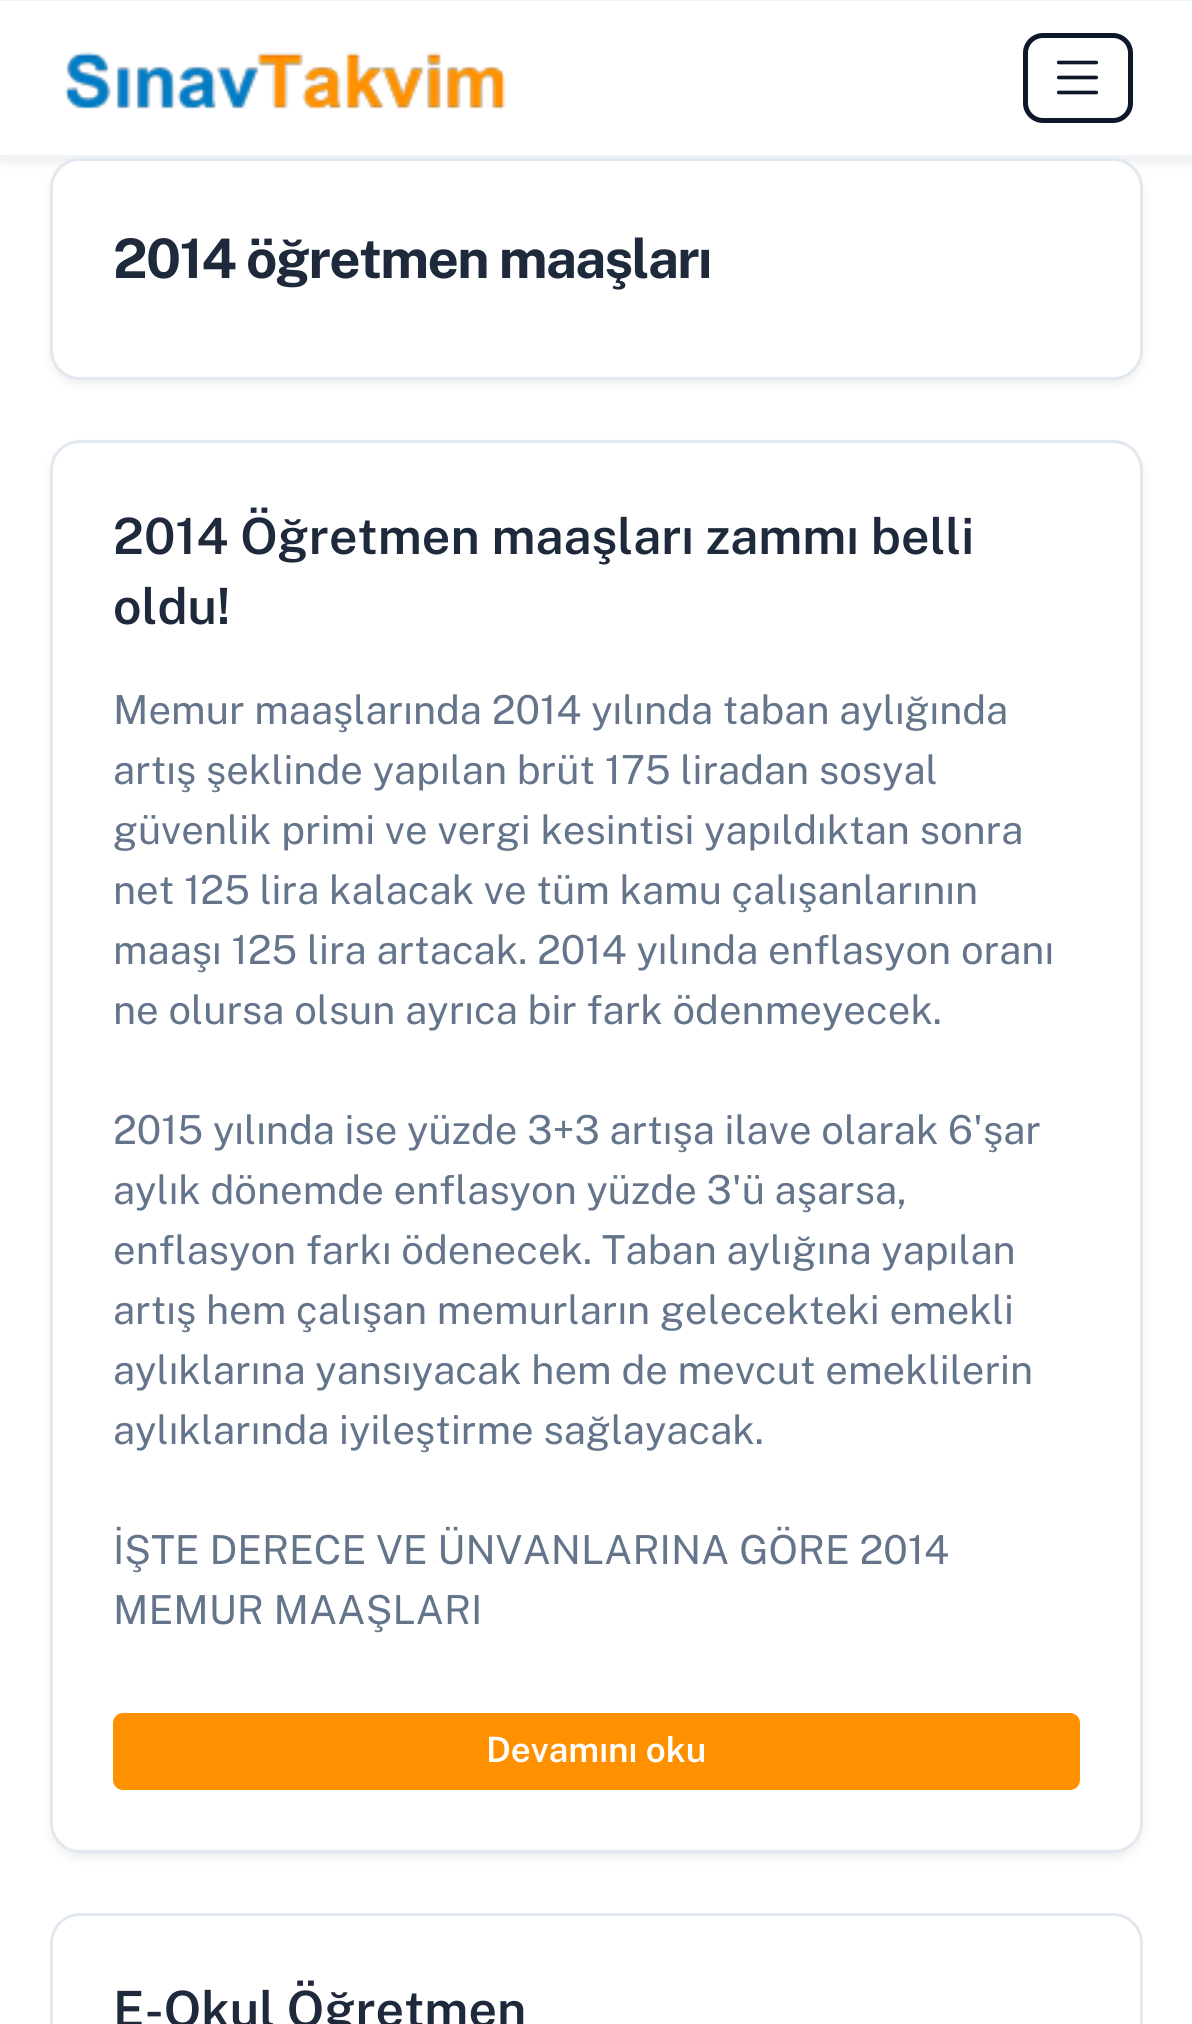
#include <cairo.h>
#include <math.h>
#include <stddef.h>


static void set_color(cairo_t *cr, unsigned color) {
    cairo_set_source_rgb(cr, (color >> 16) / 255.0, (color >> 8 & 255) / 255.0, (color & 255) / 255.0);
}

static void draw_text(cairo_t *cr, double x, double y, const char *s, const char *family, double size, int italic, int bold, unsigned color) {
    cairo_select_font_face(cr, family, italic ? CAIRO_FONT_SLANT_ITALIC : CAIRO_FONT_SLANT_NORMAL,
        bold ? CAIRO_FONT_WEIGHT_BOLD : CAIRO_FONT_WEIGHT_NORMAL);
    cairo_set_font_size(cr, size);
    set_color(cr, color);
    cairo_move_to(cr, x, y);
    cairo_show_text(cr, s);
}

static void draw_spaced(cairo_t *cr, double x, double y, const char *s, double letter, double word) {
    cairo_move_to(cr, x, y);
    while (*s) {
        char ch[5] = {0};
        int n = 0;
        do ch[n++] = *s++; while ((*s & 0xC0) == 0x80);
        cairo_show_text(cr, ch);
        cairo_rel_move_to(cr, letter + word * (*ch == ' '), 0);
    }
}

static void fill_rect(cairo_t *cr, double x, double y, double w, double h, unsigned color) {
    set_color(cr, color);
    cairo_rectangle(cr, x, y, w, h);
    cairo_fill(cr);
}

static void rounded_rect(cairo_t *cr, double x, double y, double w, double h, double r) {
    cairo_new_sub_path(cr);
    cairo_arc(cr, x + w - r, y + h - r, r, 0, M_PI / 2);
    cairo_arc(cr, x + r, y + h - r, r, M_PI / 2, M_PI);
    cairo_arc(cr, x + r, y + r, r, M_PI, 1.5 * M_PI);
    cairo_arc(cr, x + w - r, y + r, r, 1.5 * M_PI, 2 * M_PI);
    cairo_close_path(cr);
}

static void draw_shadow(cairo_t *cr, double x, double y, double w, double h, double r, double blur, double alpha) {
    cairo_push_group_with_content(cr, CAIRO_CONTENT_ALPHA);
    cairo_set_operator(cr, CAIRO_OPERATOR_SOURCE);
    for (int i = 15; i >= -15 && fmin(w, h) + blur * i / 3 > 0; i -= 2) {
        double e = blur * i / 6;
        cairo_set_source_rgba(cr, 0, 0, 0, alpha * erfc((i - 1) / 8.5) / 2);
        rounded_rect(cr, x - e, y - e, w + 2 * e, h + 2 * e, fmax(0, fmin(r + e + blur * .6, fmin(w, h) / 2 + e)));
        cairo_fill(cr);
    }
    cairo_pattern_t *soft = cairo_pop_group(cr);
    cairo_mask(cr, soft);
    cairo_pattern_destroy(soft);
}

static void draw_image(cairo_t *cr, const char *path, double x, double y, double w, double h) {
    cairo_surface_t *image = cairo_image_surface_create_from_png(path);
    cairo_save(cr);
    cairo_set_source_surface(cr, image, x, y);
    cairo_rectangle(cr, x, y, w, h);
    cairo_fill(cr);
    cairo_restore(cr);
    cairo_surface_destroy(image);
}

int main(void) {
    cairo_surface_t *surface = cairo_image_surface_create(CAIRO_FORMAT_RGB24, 1192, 2024);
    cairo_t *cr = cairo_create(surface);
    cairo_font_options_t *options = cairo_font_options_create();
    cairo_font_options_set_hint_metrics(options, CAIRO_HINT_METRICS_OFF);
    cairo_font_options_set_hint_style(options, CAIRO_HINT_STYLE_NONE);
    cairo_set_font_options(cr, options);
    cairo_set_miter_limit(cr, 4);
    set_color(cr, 0xFFFFFF);
    cairo_paint(cr);
    set_color(cr, 0x020617);
    draw_shadow(cr, 0, 5, 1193, 158, 0, 5, 0.07);
    fill_rect(cr, 0, 1, 1192, 154, 0xFFFFFF);
    fill_rect(cr, 0, 155, 1192, 3, 0xF1F5F9);
    draw_image(cr, "assets/img1.png", 64, 51, 442, 59);
    rounded_rect(cr, 1025.5, 35.5, 105, 85, 17.5);
    set_color(cr, 0x0F172A);
    cairo_set_line_width(cr, 5);
    cairo_stroke(cr);
    draw_image(cr, "assets/img2.png", 1056, 60, 43, 35);
    fill_rect(cr, 0, 0, 1192, 1, 0xF1F5F9);
    set_color(cr, 0x020617);
    draw_shadow(cr, 50, 163, 1093, 222, 30, 5, 0.07);
    set_color(cr, 0xFFFFFF);
    rounded_rect(cr, 51.5, 159.5, 1090, 219, 28.5);
    cairo_fill_preserve(cr);
    set_color(cr, 0xE2E8F0);
    cairo_set_line_width(cr, 3);
    cairo_stroke(cr);
    cairo_select_font_face(cr, "Public Sans", CAIRO_FONT_SLANT_NORMAL, CAIRO_FONT_WEIGHT_BOLD);
    cairo_set_font_size(cr, 54.5);
    set_color(cr, 0x1E293B);
    draw_spaced(cr, 113, 278, "2014 öğretmen maaşları", -1.6, 0);
    set_color(cr, 0x020617);
    draw_shadow(cr, 50, 445, 1093, 1413, 30, 5, 0.07);
    set_color(cr, 0xFFFFFF);
    rounded_rect(cr, 51.5, 441.5, 1090, 1410, 28.5);
    cairo_fill_preserve(cr);
    set_color(cr, 0xE2E8F0);
    cairo_stroke(cr);
    draw_text(cr, 113, 554, "2014 Öğretmen maaşları zammı belli", "Public Sans SemiBold", 50, 0, 0, 0x1E293B);
    draw_text(cr, 113, 624, "oldu!", "Public Sans SemiBold", 50, 0, 0, 0x1E293B);
    draw_text(cr, 113, 724, "Memur maaşlarında 2014 yılında taban aylığında", "Public Sans", 40, 0, 0, 0x64748B);
    draw_text(cr, 113, 784, "artış şeklinde yapılan brüt 175 liradan sosyal", "Public Sans", 40, 0, 0, 0x64748B);
    draw_text(cr, 113, 844, "güvenlik primi ve vergi kesintisi yapıldıktan sonra", "Public Sans", 40, 0, 0, 0x64748B);
    draw_text(cr, 113, 904, "net 125 lira kalacak ve tüm kamu çalışanlarının", "Public Sans", 40, 0, 0, 0x64748B);
    draw_text(cr, 113, 964, "maaşı 125 lira artacak. 2014 yılında enflasyon oranı", "Public Sans", 40, 0, 0, 0x64748B);
    draw_text(cr, 113, 1024, "ne olursa olsun ayrıca bir fark ödenmeyecek.", "Public Sans", 40, 0, 0, 0x64748B);
    draw_text(cr, 113, 1144, "2015 yılında ise yüzde 3+3 artışa ilave olarak 6'şar", "Public Sans", 40, 0, 0, 0x64748B);
    draw_text(cr, 113, 1204, "aylık dönemde enflasyon yüzde 3'ü aşarsa,", "Public Sans", 40, 0, 0, 0x64748B);
    draw_text(cr, 113, 1264, "enflasyon farkı ödenecek. Taban aylığına yapılan", "Public Sans", 40, 0, 0, 0x64748B);
    draw_text(cr, 113, 1324, "artış hem çalışan memurların gelecekteki emekli", "Public Sans", 40, 0, 0, 0x64748B);
    draw_text(cr, 113, 1384, "aylıklarına yansıyacak hem de mevcut emeklilerin", "Public Sans", 40, 0, 0, 0x64748B);
    draw_text(cr, 113, 1444, "aylıklarında iyileştirme sağlayacak.", "Public Sans", 40, 0, 0, 0x64748B);
    draw_text(cr, 113, 1564, "İŞTE DERECE VE ÜNVANLARINA GÖRE 2014", "Public Sans", 40, 0, 0, 0x64748B);
    draw_text(cr, 113, 1624, "MEMUR MAAŞLARI", "Public Sans", 40, 0, 0, 0x64748B);
    set_color(cr, 0xFF9000);
    rounded_rect(cr, 114.5, 1714.5, 964, 74, 8.5);
    cairo_fill_preserve(cr);
    cairo_stroke(cr);
    draw_text(cr, 486, 1762, "Devamını oku", "Public Sans SemiBold", 35, 0, 0, 0xFFFFFF);
    rounded_rect(cr, 51.5, 1914.5, 1090, 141, 28.5);
    set_color(cr, 0xE2E8F0);
    cairo_stroke(cr);
    draw_text(cr, 113, 2027, "E-Okul Öğretmen", "Public Sans SemiBold", 50, 0, 0, 0x1E293B);
    cairo_surface_write_to_png(surface, "output.png");
    cairo_font_options_destroy(options);
    cairo_destroy(cr);
    cairo_surface_destroy(surface);
    return 0;
}
